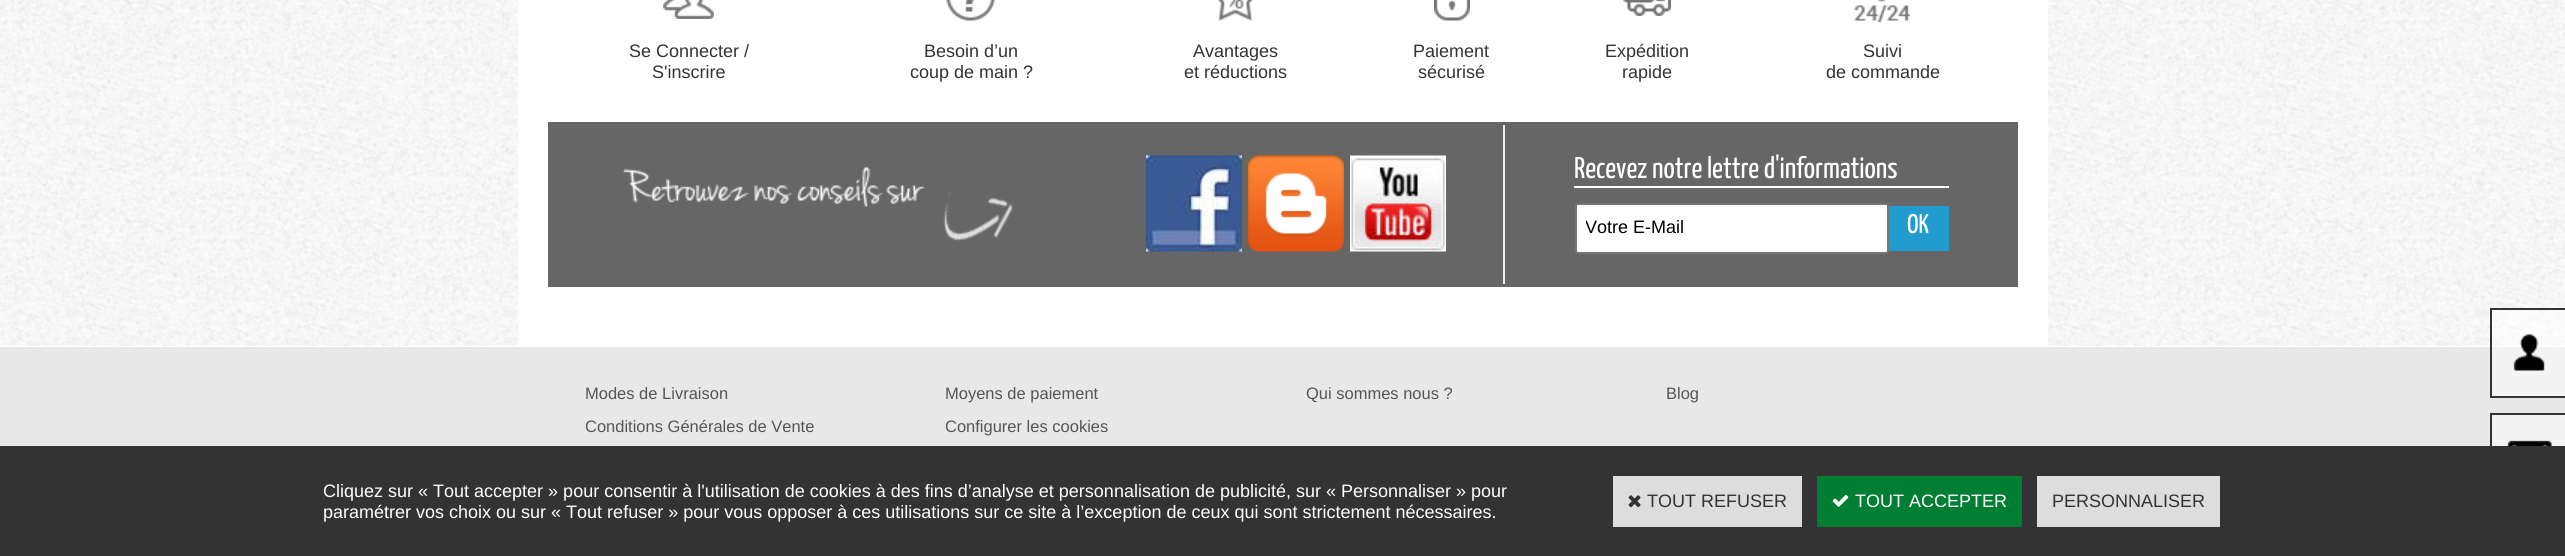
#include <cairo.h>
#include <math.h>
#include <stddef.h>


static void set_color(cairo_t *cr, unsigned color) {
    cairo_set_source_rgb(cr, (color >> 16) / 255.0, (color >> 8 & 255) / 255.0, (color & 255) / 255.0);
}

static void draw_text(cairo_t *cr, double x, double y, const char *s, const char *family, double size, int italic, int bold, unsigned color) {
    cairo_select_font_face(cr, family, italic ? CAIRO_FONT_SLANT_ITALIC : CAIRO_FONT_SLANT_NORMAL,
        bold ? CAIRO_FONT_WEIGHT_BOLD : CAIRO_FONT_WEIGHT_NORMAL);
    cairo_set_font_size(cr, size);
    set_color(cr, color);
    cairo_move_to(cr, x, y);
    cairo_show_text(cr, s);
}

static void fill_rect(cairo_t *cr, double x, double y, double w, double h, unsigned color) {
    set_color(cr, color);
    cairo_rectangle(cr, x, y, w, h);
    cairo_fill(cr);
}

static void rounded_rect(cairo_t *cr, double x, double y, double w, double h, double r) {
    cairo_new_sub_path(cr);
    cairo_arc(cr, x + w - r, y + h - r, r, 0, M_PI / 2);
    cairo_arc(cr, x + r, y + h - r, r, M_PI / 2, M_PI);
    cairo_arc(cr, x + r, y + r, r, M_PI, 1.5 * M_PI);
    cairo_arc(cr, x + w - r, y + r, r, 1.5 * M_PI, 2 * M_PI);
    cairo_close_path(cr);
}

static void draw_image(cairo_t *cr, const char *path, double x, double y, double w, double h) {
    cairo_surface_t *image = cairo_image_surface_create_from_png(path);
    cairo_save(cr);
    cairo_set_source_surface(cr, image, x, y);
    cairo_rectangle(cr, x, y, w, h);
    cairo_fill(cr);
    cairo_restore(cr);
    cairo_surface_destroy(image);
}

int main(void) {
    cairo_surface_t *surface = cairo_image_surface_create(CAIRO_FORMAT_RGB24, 2565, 556);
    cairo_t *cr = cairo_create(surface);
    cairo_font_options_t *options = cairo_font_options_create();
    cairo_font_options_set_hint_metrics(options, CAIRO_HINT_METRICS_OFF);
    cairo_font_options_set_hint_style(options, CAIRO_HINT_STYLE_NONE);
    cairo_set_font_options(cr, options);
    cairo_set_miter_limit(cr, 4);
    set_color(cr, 0xFFFFFF);
    cairo_paint(cr);
    draw_image(cr, "assets/img1.png", 0, 0, 2565, 346);
    fill_rect(cr, 518, 0, 1530, 346, 0xFFFFFF);
    draw_image(cr, "assets/img2.png", 663, 0, 51, 19);
    draw_image(cr, "assets/img3.png", 946, 0, 49, 21);
    draw_image(cr, "assets/img4.png", 1217, 0, 36, 21);
    draw_image(cr, "assets/img5.png", 1434, 0, 36, 21);
    draw_image(cr, "assets/img6.png", 1623, 0, 48, 16);
    draw_image(cr, "assets/img7.png", 1854, 0, 57, 22);
    draw_text(cr, 629, 57, "Se Connecter /", "Liberation Sans", 18, 0, 0, 0x333333);
    draw_text(cr, 652, 78, "S'inscrire", "Liberation Sans", 18, 0, 0, 0x333333);
    draw_text(cr, 924, 57, "Besoin d’un", "Liberation Sans", 18, 0, 0, 0x333333);
    draw_text(cr, 910, 78, "coup de main ?", "Liberation Sans", 18, 0, 0, 0x333333);
    draw_text(cr, 1193, 57, "Avantages", "Liberation Sans", 18, 0, 0, 0x333333);
    draw_text(cr, 1184, 78, "et réductions", "Liberation Sans", 18, 0, 0, 0x333333);
    draw_text(cr, 1413, 57, "Paiement", "Liberation Sans", 18, 0, 0, 0x333333);
    draw_text(cr, 1418, 78, "sécurisé", "Liberation Sans", 18, 0, 0, 0x333333);
    draw_text(cr, 1605, 57, "Expédition", "Liberation Sans", 18, 0, 0, 0x333333);
    draw_text(cr, 1622, 78, "rapide", "Liberation Sans", 18, 0, 0, 0x333333);
    draw_text(cr, 1863, 57, "Suivi", "Liberation Sans", 18, 0, 0, 0x333333);
    draw_text(cr, 1826, 78, "de commande", "Liberation Sans", 18, 0, 0, 0x333333);
    fill_rect(cr, 548, 122, 1470, 165, 0x666666);
    draw_image(cr, "assets/img8.png", 622, 167, 391, 74);
    fill_rect(cr, 1503, 125, 2, 159, 0xEBEBEB);
    draw_image(cr, "assets/img9.png", 1146, 155, 96, 97);
    draw_image(cr, "assets/img10.png", 1248, 155, 96, 97);
    draw_image(cr, "assets/img11.png", 1350, 155, 96, 97);
    fill_rect(cr, 1574, 186, 375, 2, 0xFFFFFF);
    draw_text(cr, 1574, 178, "Recevez notre lettre d'informations", "Yanone Kaffeesatz ExtraLight", 30, 0, 0, 0xFFFFFF);
    rounded_rect(cr, 1576, 204, 312, 49, 2);
    cairo_fill_preserve(cr);
    set_color(cr, 0x767676);
    cairo_stroke(cr);
    cairo_save(cr);
    cairo_rectangle(cr, 1586, 206, 300, 45);
    cairo_clip(cr);
    draw_text(cr, 1585, 233, "Votre E-Mail", "Liberation Sans", 18, 0, 0, 0x000000);
    cairo_restore(cr);
    fill_rect(cr, 1889, 206, 60, 45, 0x229CCF);
    draw_text(cr, 1907, 233, "OK", "Yanone Kaffeesatz ExtraLight", 27, 0, 0, 0xFFFFFF);
    fill_rect(cr, 0, 347, 2565, 99, 0xE8E8E8);
    draw_text(cr, 585, 399, "Modes de Livraison", "Liberation Sans", 16.5, 0, 0, 0x555555);
    draw_text(cr, 945, 399, "Moyens de paiement", "Liberation Sans", 16.5, 0, 0, 0x555555);
    draw_text(cr, 1306, 399, "Qui sommes nous ?", "Liberation Sans", 16.5, 0, 0, 0x555555);
    draw_text(cr, 1666, 399, "Blog", "Liberation Sans", 16.5, 0, 0, 0x555555);
    draw_text(cr, 585, 432, "Conditions Générales de Vente", "Liberation Sans", 16.5, 0, 0, 0x555555);
    draw_text(cr, 945, 432, "Configurer les cookies", "Liberation Sans", 16.5, 0, 0, 0x555555);
    cairo_set_source_rgba(cr, 1, 1, 1, 0.5);
    cairo_rectangle(cr, 2492, 310, 73, 86);
    cairo_fill(cr);
    draw_image(cr, "assets/img12.png", 2513, 334, 32, 37);
    cairo_rectangle(cr, 2491, 309, 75, 88);
    set_color(cr, 0x333333);
    cairo_stroke(cr);
    cairo_set_source_rgba(cr, 1, 1, 1, 0.5);
    cairo_rectangle(cr, 2492, 415, 73, 31);
    cairo_fill(cr);
    draw_image(cr, "assets/img13.png", 2507, 440, 45, 6);
    cairo_rectangle(cr, 2491, 414, 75, 88);
    set_color(cr, 0x333333);
    cairo_stroke(cr);
    fill_rect(cr, 0, 446, 2565, 110, 0x333333);
    draw_text(cr, 323, 497, "Cliquez sur « Tout accepter » pour consentir à l'utilisation de cookies à des fins d’analyse et personnalisation de publicité, sur « Personnaliser » pour", "Liberation Sans", 18, 0, 0, 0xFFFFFF);
    draw_text(cr, 323, 518, "paramétrer vos choix ou sur « Tout refuser » pour vous opposer à ces utilisations sur ce site à l’exception de ceux qui sont strictement nécessaires.", "Liberation Sans", 18, 0, 0, 0xFFFFFF);
    fill_rect(cr, 1613, 476, 189, 51, 0xDDDDDD);
    draw_image(cr, "assets/img14.png", 1628, 495, 13, 13);
    draw_text(cr, 1647, 507, "TOUT REFUSER", "Liberation Sans", 18, 0, 0, 0x333333);
    fill_rect(cr, 1817, 476, 205, 51, 0x007E33);
    draw_image(cr, "assets/img15.png", 1832, 495, 17, 12);
    draw_text(cr, 1855, 507, "TOUT ACCEPTER", "Liberation Sans", 18, 0, 0, 0xFFFFFF);
    fill_rect(cr, 2037, 476, 183, 51, 0xDDDDDD);
    draw_text(cr, 2052, 507, "PERSONNALISER", "Liberation Sans", 18, 0, 0, 0x333333);
    cairo_surface_write_to_png(surface, "output.png");
    cairo_font_options_destroy(options);
    cairo_destroy(cr);
    cairo_surface_destroy(surface);
    return 0;
}
